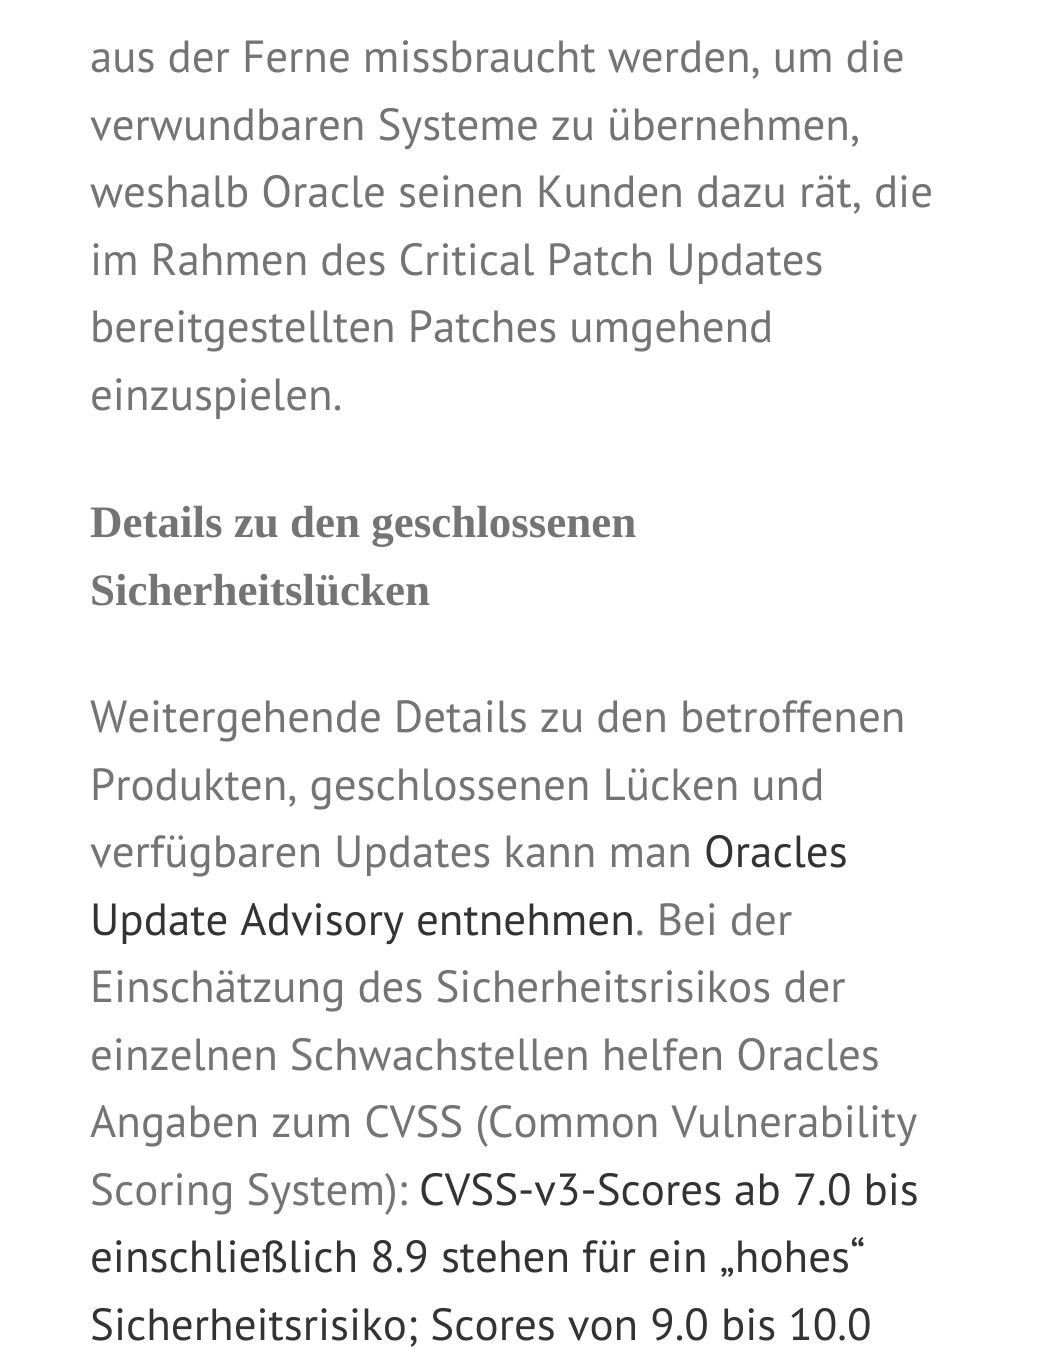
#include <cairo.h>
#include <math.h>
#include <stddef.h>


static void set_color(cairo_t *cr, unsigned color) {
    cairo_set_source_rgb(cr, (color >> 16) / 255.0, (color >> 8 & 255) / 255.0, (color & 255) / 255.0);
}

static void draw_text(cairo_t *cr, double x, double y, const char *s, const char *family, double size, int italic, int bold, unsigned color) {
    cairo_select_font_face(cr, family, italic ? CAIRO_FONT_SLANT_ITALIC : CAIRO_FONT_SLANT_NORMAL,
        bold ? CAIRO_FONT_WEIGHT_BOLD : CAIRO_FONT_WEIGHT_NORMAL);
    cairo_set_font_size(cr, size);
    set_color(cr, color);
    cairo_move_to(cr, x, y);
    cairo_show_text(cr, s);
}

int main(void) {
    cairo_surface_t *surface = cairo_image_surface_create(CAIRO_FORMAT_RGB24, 1052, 1349);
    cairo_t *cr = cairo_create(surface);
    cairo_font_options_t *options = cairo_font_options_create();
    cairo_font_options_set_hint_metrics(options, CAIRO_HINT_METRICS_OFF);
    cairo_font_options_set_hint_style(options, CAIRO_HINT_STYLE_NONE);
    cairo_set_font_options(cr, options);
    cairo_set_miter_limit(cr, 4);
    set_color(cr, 0xFFFFFF);
    cairo_paint(cr);
    draw_text(cr, 90, 72, "aus der Ferne missbraucht werden, um die", "PT Sans", 45, 0, 0, 0x747474);
    draw_text(cr, 90, 140, "verwundbaren Systeme zu übernehmen,", "PT Sans", 45, 0, 0, 0x747474);
    draw_text(cr, 90, 207, "weshalb Oracle seinen Kunden dazu rät, die", "PT Sans", 45, 0, 0, 0x747474);
    draw_text(cr, 90, 275, "im Rahmen des Critical Patch Updates", "PT Sans", 45, 0, 0, 0x747474);
    draw_text(cr, 90, 342, "bereitgestellten Patches umgehend", "PT Sans", 45, 0, 0, 0x747474);
    draw_text(cr, 90, 410, "einzuspielen.", "PT Sans", 45, 0, 0, 0x747474);
    draw_text(cr, 90, 537, "Details zu den geschlossenen", "Liberation Serif", 45, 0, 1, 0x747474);
    draw_text(cr, 90, 605, "Sicherheitslücken", "Liberation Serif", 45, 0, 1, 0x747474);
    draw_text(cr, 90, 732, "Weitergehende Details zu den betroffenen", "PT Sans", 45, 0, 0, 0x747474);
    draw_text(cr, 90, 800, "Produkten, geschlossenen Lücken und", "PT Sans", 45, 0, 0, 0x747474);
    draw_text(cr, 90, 867, "verfügbaren Updates kann man", "PT Sans", 45, 0, 0, 0x747474);
    draw_text(cr, 704, 867, "Oracles", "PT Sans", 45, 0, 0, 0x333333);
    draw_text(cr, 90, 935, "Update Advisory entnehmen", "PT Sans", 45, 0, 0, 0x333333);
    draw_text(cr, 635, 935, ". Bei der", "PT Sans", 45, 0, 0, 0x747474);
    draw_text(cr, 90, 1002, "Einschätzung des Sicherheitsrisikos der", "PT Sans", 45, 0, 0, 0x747474);
    draw_text(cr, 90, 1070, "einzelnen Schwachstellen helfen Oracles", "PT Sans", 45, 0, 0, 0x747474);
    draw_text(cr, 90, 1137, "Angaben zum CVSS (Common Vulnerability", "PT Sans", 45, 0, 0, 0x747474);
    draw_text(cr, 90, 1205, "Scoring System):", "PT Sans", 45, 0, 0, 0x747474);
    draw_text(cr, 419, 1205, "CVSS-v3-Scores ab 7.0 bis", "PT Sans", 45, 0, 0, 0x333333);
    draw_text(cr, 90, 1272, "einschließlich 8.9 stehen für ein „hohes“", "PT Sans", 45, 0, 0, 0x333333);
    draw_text(cr, 90, 1340, "Sicherheitsrisiko; Scores von 9.0 bis 10.0", "PT Sans", 45, 0, 0, 0x333333);
    cairo_surface_write_to_png(surface, "output.png");
    cairo_font_options_destroy(options);
    cairo_destroy(cr);
    cairo_surface_destroy(surface);
    return 0;
}
